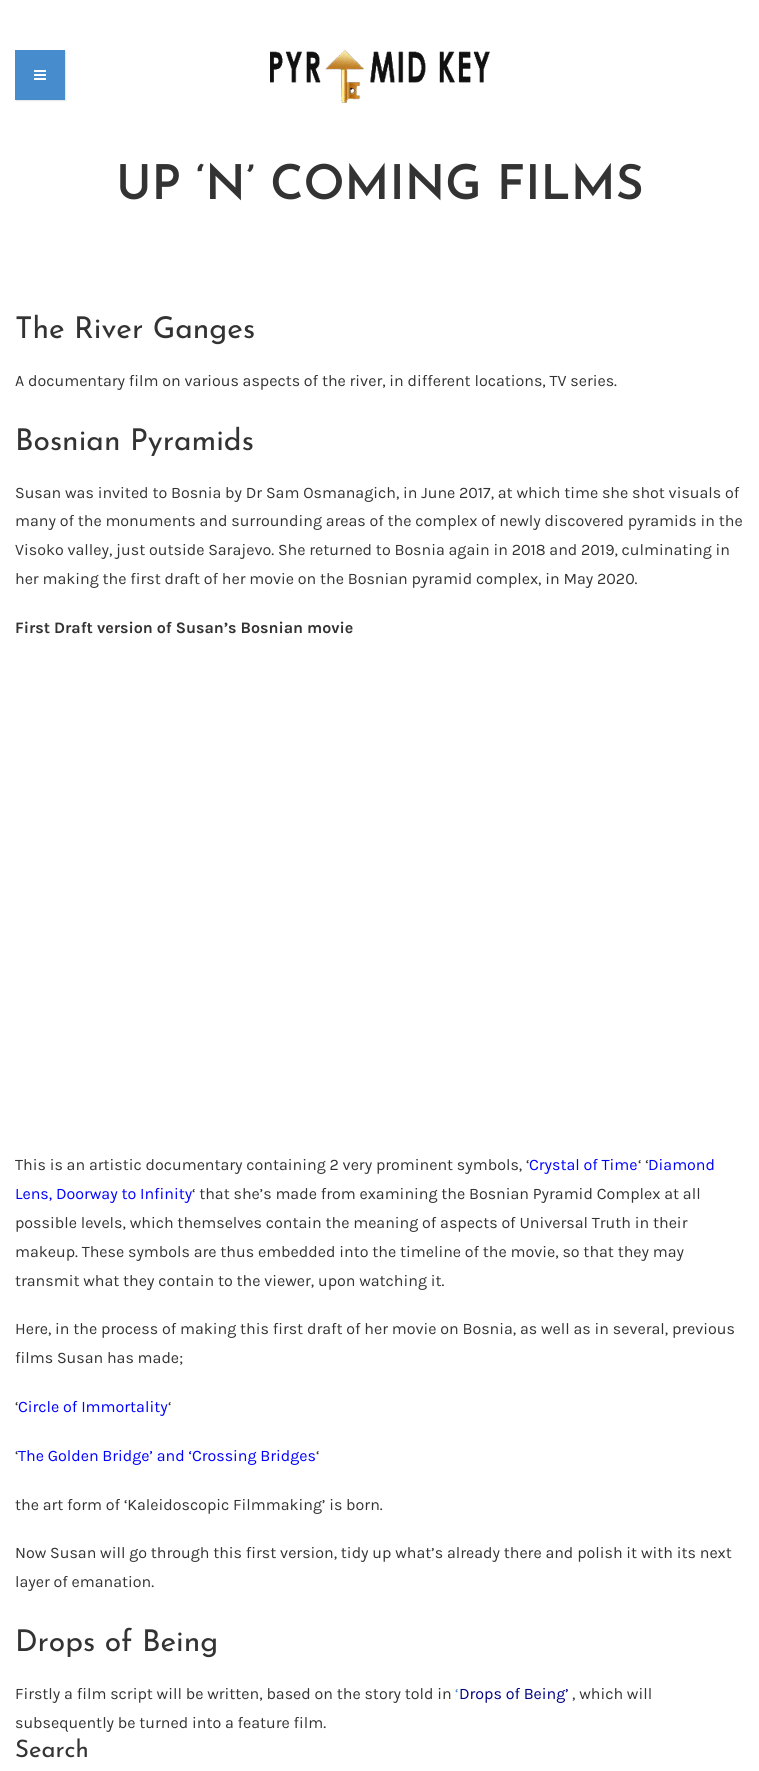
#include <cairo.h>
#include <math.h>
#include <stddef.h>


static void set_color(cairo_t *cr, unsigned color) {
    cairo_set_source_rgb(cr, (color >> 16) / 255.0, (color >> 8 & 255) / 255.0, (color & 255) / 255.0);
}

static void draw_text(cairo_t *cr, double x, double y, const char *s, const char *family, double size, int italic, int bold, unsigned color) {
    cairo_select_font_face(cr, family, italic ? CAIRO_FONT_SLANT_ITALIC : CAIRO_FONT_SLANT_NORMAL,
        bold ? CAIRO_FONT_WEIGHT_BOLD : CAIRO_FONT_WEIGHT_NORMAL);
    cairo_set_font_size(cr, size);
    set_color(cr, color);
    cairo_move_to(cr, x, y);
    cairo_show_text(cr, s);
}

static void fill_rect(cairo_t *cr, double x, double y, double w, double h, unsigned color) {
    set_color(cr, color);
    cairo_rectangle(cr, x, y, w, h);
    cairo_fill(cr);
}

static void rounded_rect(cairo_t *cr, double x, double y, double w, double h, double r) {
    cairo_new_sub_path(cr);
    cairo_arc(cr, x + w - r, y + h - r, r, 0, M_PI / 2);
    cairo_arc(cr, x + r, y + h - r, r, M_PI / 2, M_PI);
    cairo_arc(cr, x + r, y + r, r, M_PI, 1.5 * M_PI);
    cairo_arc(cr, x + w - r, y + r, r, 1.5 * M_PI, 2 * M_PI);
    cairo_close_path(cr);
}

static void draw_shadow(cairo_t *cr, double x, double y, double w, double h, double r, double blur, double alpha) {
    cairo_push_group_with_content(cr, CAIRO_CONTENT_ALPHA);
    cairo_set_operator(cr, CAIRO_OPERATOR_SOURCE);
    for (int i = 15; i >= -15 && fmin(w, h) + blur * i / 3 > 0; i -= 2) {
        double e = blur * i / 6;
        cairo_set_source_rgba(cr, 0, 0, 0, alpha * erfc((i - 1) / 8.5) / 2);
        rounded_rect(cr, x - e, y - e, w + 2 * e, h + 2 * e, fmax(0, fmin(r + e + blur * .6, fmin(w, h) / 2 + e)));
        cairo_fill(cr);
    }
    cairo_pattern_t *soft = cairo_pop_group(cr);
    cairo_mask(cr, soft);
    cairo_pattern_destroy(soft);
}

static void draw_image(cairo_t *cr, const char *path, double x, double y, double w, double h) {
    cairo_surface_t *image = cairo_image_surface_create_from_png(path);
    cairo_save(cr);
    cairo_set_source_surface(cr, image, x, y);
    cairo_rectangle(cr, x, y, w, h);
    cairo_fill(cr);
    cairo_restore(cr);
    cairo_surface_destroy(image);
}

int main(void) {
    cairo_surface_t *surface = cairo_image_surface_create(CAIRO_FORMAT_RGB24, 759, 1771);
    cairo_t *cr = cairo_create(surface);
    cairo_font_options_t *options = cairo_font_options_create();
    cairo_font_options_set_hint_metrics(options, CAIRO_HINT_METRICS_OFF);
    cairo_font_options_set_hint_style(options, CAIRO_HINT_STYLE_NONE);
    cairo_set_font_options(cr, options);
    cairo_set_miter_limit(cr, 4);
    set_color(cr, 0xFFFFFF);
    cairo_paint(cr);
    set_color(cr, 0x000000);
    draw_shadow(cr, 16, 51, 50, 50, 0, 0.5, 0.1);
    fill_rect(cr, 15, 50, 50, 50, 0x478DCE);
    draw_image(cr, "assets/img1.png", 34, 70, 12, 10);
    draw_image(cr, "assets/img2.png", 270, 50, 220, 53);
    draw_text(cr, 116, 199, "UP ‘N’ COMING FILMS", "Josefin Sans SemiBold", 48, 0, 0, 0x333333);
    draw_text(cr, 15, 338, "The River Ganges", "Josefin Sans", 30, 0, 0, 0x333333);
    draw_text(cr, 15, 386, "A documentary film on various aspects of the river, in different locations, TV series.", "Karla", 16, 0, 0, 0x333333);
    draw_text(cr, 15, 450, "Bosnian Pyramids", "Josefin Sans", 30, 0, 0, 0x333333);
    draw_text(cr, 15, 498, "Susan was invited to Bosnia by Dr Sam Osmanagich, in June 2017, at which time she shot visuals of", "Karla", 16, 0, 0, 0x333333);
    draw_text(cr, 15, 526, "many of the monuments and surrounding areas of the complex of newly discovered pyramids in the", "Karla", 16, 0, 0, 0x333333);
    draw_text(cr, 15, 555, "Visoko valley, just outside Sarajevo. She returned to Bosnia again in 2018 and 2019, culminating in", "Karla", 16, 0, 0, 0x333333);
    draw_text(cr, 15, 584, "her making the first draft of her movie on the Bosnian pyramid complex, in May 2020.", "Karla", 16, 0, 0, 0x333333);
    draw_text(cr, 15, 633, "First Draft version of Susan’s Bosnian movie", "Karla", 16, 0, 1, 0x333333);
    draw_text(cr, 15, 1170, "This is an artistic documentary containing 2 very prominent symbols, ‘", "Karla", 16, 0, 0, 0x333333);
    draw_text(cr, 529, 1170, "Crystal of Time", "Karla", 16, 0, 0, 0x0000FF);
    draw_text(cr, 638, 1170, "‘ ‘", "Karla", 16, 0, 0, 0x333333);
    draw_text(cr, 648, 1170, "Diamond", "Karla", 16, 0, 0, 0x0000FF);
    draw_text(cr, 15, 1199, "Lens, Doorway to Infinity", "Karla", 16, 0, 0, 0x0000FF);
    draw_text(cr, 192, 1199, "‘ that she’s made from examining the Bosnian Pyramid Complex at all", "Karla", 16, 0, 0, 0x333333);
    draw_text(cr, 15, 1228, "possible levels, which themselves contain the meaning of aspects of Universal Truth in their", "Karla", 16, 0, 0, 0x333333);
    draw_text(cr, 15, 1257, "makeup. These symbols are thus embedded into the timeline of the movie, so that they may", "Karla", 16, 0, 0, 0x333333);
    draw_text(cr, 15, 1286, "transmit what they contain to the viewer, upon watching it.", "Karla", 16, 0, 0, 0x333333);
    draw_text(cr, 15, 1334, "Here, in the process of making this first draft of her movie on Bosnia, as well as in several, previous", "Karla", 16, 0, 0, 0x333333);
    draw_text(cr, 15, 1363, "films Susan has made;", "Karla", 16, 0, 0, 0x333333);
    draw_text(cr, 15, 1412, "‘", "Karla", 16, 0, 0, 0x333333);
    draw_text(cr, 18, 1412, "Circle of Immortality", "Karla", 16, 0, 0, 0x0000FF);
    draw_text(cr, 168, 1412, "‘", "Karla", 16, 0, 0, 0x333333);
    draw_text(cr, 15, 1461, "‘", "Karla", 16, 0, 0, 0x333333);
    draw_text(cr, 18, 1461, "The Golden Bridge’ and ‘Crossing Bridges", "Karla", 16, 0, 0, 0x0000FF);
    draw_text(cr, 316, 1461, "‘", "Karla", 16, 0, 0, 0x333333);
    draw_text(cr, 15, 1510, "the art form of ‘Kaleidoscopic Filmmaking’ is born.", "Karla", 16, 0, 0, 0x333333);
    draw_text(cr, 15, 1558, "Now Susan will go through this first version, tidy up what’s already there and polish it with its next", "Karla", 16, 0, 0, 0x333333);
    draw_text(cr, 15, 1587, "layer of emanation.", "Karla", 16, 0, 0, 0x333333);
    draw_text(cr, 15, 1651, "Drops of Being", "Josefin Sans", 30, 0, 0, 0x333333);
    draw_text(cr, 15, 1699, "Firstly a film script will be written, based on the story told in", "Karla", 16, 0, 0, 0x333333);
    draw_text(cr, 455, 1699, "‘", "Karla", 16, 0, 0, 0x478DCE);
    draw_text(cr, 459, 1699, "Drops of Being’", "Karla", 16, 0, 0, 0x000080);
    draw_text(cr, 572, 1699, ", which will", "Karla", 16, 0, 0, 0x333333);
    draw_text(cr, 15, 1728, "subsequently be turned into a feature film.", "Karla", 16, 0, 0, 0x333333);
    draw_text(cr, 15, 1757, "Search", "Josefin Sans", 24, 0, 0, 0x333333);
    cairo_surface_write_to_png(surface, "output.png");
    cairo_font_options_destroy(options);
    cairo_destroy(cr);
    cairo_surface_destroy(surface);
    return 0;
}
